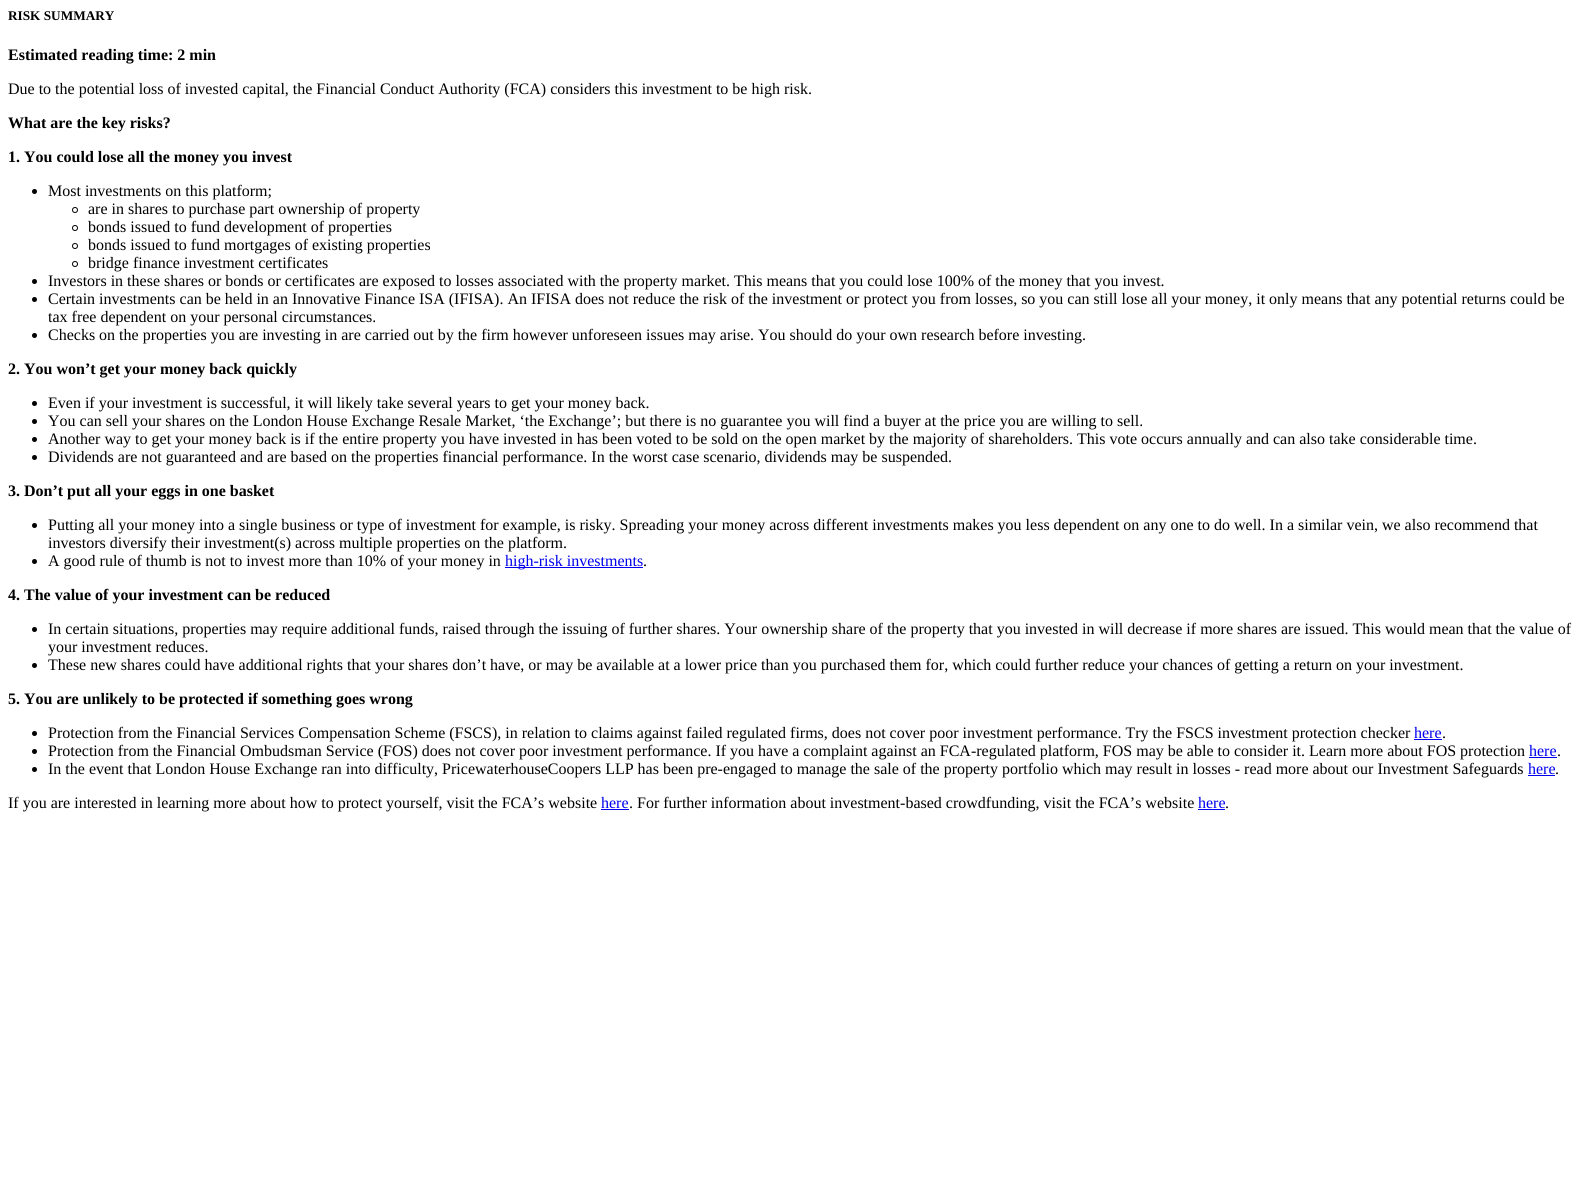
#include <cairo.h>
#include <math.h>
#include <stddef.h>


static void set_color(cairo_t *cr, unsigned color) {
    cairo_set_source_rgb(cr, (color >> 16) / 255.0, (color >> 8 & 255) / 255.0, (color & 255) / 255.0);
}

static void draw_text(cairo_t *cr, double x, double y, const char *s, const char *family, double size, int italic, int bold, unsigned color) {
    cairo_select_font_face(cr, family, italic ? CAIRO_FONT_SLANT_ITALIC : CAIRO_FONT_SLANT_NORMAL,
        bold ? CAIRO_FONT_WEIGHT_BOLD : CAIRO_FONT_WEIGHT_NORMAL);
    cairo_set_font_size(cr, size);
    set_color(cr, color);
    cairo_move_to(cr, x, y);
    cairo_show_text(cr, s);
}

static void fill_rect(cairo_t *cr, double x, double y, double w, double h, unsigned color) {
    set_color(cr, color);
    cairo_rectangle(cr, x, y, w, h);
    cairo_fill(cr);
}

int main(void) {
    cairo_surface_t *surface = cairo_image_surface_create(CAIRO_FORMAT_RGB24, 1589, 1196);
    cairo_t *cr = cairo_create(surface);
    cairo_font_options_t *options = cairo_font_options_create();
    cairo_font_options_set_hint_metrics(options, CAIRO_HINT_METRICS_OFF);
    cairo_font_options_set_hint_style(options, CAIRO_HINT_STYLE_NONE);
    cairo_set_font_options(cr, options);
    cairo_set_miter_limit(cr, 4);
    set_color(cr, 0xFFFFFF);
    cairo_paint(cr);
    draw_text(cr, 8, 20, "RISK SUMMARY", "Liberation Serif", 13.25, 0, 1, 0x000000);
    draw_text(cr, 8, 60, "Estimated reading time: 2 min", "Liberation Serif", 16, 0, 1, 0x000000);
    draw_text(cr, 8, 94, "Due to the potential loss of invested capital, the Financial Conduct Authority (FCA) considers this investment to be high risk.", "Liberation Serif", 16, 0, 0, 0x000000);
    draw_text(cr, 8, 128, "What are the key risks?", "Liberation Serif", 16, 0, 1, 0x000000);
    draw_text(cr, 8, 162, "1. You could lose all the money you invest", "Liberation Serif", 16, 0, 1, 0x000000);
    cairo_new_path(cr);
    cairo_arc(cr, 34.5, 191.5, 2.5, 0, 2 * M_PI);
    cairo_fill(cr);
    draw_text(cr, 48, 196, "Most investments on this platform;", "Liberation Serif", 16, 0, 0, 0x000000);
    cairo_new_path(cr);
    cairo_arc(cr, 75, 210, 2.5, 0, 2 * M_PI);
    cairo_set_line_width(cr, 1);
    cairo_stroke(cr);
    draw_text(cr, 88, 214, "are in shares to purchase part ownership of property", "Liberation Serif", 16, 0, 0, 0x000000);
    cairo_new_path(cr);
    cairo_arc(cr, 75, 228, 2.5, 0, 2 * M_PI);
    cairo_stroke(cr);
    draw_text(cr, 88, 232, "bonds issued to fund development of properties", "Liberation Serif", 16, 0, 0, 0x000000);
    cairo_new_path(cr);
    cairo_arc(cr, 75, 246, 2.5, 0, 2 * M_PI);
    cairo_stroke(cr);
    draw_text(cr, 88, 250, "bonds issued to fund mortgages of existing properties", "Liberation Serif", 16, 0, 0, 0x000000);
    cairo_new_path(cr);
    cairo_arc(cr, 75, 264, 2.5, 0, 2 * M_PI);
    cairo_stroke(cr);
    draw_text(cr, 88, 268, "bridge finance investment certificates", "Liberation Serif", 16, 0, 0, 0x000000);
    cairo_new_path(cr);
    cairo_arc(cr, 34.5, 281.5, 2.5, 0, 2 * M_PI);
    cairo_fill(cr);
    draw_text(cr, 48, 286, "Investors in these shares or bonds or certificates are exposed to losses associated with the property market. This means that you could lose 100% of the money that you invest.", "Liberation Serif", 16, 0, 0, 0x000000);
    cairo_new_path(cr);
    cairo_arc(cr, 34.5, 299.5, 2.5, 0, 2 * M_PI);
    cairo_fill(cr);
    draw_text(cr, 48, 304, "Certain investments can be held in an Innovative Finance ISA (IFISA). An IFISA does not reduce the risk of the investment or protect you from losses, so you can still lose all your money, it only means that any potential returns could be", "Liberation Serif", 16, 0, 0, 0x000000);
    draw_text(cr, 48, 322, "tax free dependent on your personal circumstances.", "Liberation Serif", 16, 0, 0, 0x000000);
    cairo_new_path(cr);
    cairo_arc(cr, 34.5, 335.5, 2.5, 0, 2 * M_PI);
    cairo_fill(cr);
    draw_text(cr, 48, 340, "Checks on the properties you are investing in are carried out by the firm however unforeseen issues may arise. You should do your own research before investing.", "Liberation Serif", 16, 0, 0, 0x000000);
    draw_text(cr, 8, 374, "2. You won’t get your money back quickly", "Liberation Serif", 16, 0, 1, 0x000000);
    cairo_new_path(cr);
    cairo_arc(cr, 34.5, 403.5, 2.5, 0, 2 * M_PI);
    cairo_fill(cr);
    draw_text(cr, 48, 408, "Even if your investment is successful, it will likely take several years to get your money back.", "Liberation Serif", 16, 0, 0, 0x000000);
    cairo_new_path(cr);
    cairo_arc(cr, 34.5, 421.5, 2.5, 0, 2 * M_PI);
    cairo_fill(cr);
    draw_text(cr, 48, 426, "You can sell your shares on the London House Exchange Resale Market, ‘the Exchange’; but there is no guarantee you will find a buyer at the price you are willing to sell.", "Liberation Serif", 16, 0, 0, 0x000000);
    cairo_new_path(cr);
    cairo_arc(cr, 34.5, 439.5, 2.5, 0, 2 * M_PI);
    cairo_fill(cr);
    draw_text(cr, 48, 444, "Another way to get your money back is if the entire property you have invested in has been voted to be sold on the open market by the majority of shareholders. This vote occurs annually and can also take considerable time.", "Liberation Serif", 16, 0, 0, 0x000000);
    cairo_new_path(cr);
    cairo_arc(cr, 34.5, 457.5, 2.5, 0, 2 * M_PI);
    cairo_fill(cr);
    draw_text(cr, 48, 462, "Dividends are not guaranteed and are based on the properties financial performance. In the worst case scenario, dividends may be suspended.", "Liberation Serif", 16, 0, 0, 0x000000);
    draw_text(cr, 8, 496, "3. Don’t put all your eggs in one basket", "Liberation Serif", 16, 0, 1, 0x000000);
    cairo_new_path(cr);
    cairo_arc(cr, 34.5, 525.5, 2.5, 0, 2 * M_PI);
    cairo_fill(cr);
    draw_text(cr, 48, 530, "Putting all your money into a single business or type of investment for example, is risky. Spreading your money across different investments makes you less dependent on any one to do well. In a similar vein, we also recommend that", "Liberation Serif", 16, 0, 0, 0x000000);
    draw_text(cr, 48, 548, "investors diversify their investment(s) across multiple properties on the platform.", "Liberation Serif", 16, 0, 0, 0x000000);
    cairo_new_path(cr);
    cairo_arc(cr, 34.5, 561.5, 2.5, 0, 2 * M_PI);
    cairo_fill(cr);
    draw_text(cr, 48, 566, "A good rule of thumb is not to invest more than 10% of your money in", "Liberation Serif", 16, 0, 0, 0x000000);
    fill_rect(cr, 505, 567, 138, 1, 0x0000EE);
    draw_text(cr, 505, 566, "high-risk investments", "Liberation Serif", 16, 0, 0, 0x0000EE);
    draw_text(cr, 643, 566, ".", "Liberation Serif", 16, 0, 0, 0x000000);
    draw_text(cr, 8, 600, "4. The value of your investment can be reduced", "Liberation Serif", 16, 0, 1, 0x000000);
    cairo_new_path(cr);
    cairo_arc(cr, 34.5, 629.5, 2.5, 0, 2 * M_PI);
    cairo_fill(cr);
    draw_text(cr, 48, 634, "In certain situations, properties may require additional funds, raised through the issuing of further shares. Your ownership share of the property that you invested in will decrease if more shares are issued. This would mean that the value of", "Liberation Serif", 16, 0, 0, 0x000000);
    draw_text(cr, 48, 652, "your investment reduces.", "Liberation Serif", 16, 0, 0, 0x000000);
    cairo_new_path(cr);
    cairo_arc(cr, 34.5, 665.5, 2.5, 0, 2 * M_PI);
    cairo_fill(cr);
    draw_text(cr, 48, 670, "These new shares could have additional rights that your shares don’t have, or may be available at a lower price than you purchased them for, which could further reduce your chances of getting a return on your investment.", "Liberation Serif", 16, 0, 0, 0x000000);
    draw_text(cr, 8, 704, "5. You are unlikely to be protected if something goes wrong", "Liberation Serif", 16, 0, 1, 0x000000);
    cairo_new_path(cr);
    cairo_arc(cr, 34.5, 733.5, 2.5, 0, 2 * M_PI);
    cairo_fill(cr);
    draw_text(cr, 48, 738, "Protection from the Financial Services Compensation Scheme (FSCS), in relation to claims against failed regulated firms, does not cover poor investment performance. Try the FSCS investment protection checker", "Liberation Serif", 16, 0, 0, 0x000000);
    draw_text(cr, 1414, 738, "here", "Liberation Serif", 16, 0, 0, 0x0000EE);
    fill_rect(cr, 1414, 739, 28, 1, 0x0000EE);
    draw_text(cr, 1442, 738, ".", "Liberation Serif", 16, 0, 0, 0x000000);
    cairo_new_path(cr);
    cairo_arc(cr, 34.5, 751.5, 2.5, 0, 2 * M_PI);
    cairo_fill(cr);
    draw_text(cr, 48, 756, "Protection from the Financial Ombudsman Service (FOS) does not cover poor investment performance. If you have a complaint against an FCA-regulated platform, FOS may be able to consider it. Learn more about FOS protection", "Liberation Serif", 16, 0, 0, 0x000000);
    draw_text(cr, 1529, 756, "here", "Liberation Serif", 16, 0, 0, 0x0000EE);
    fill_rect(cr, 1529, 757, 28, 1, 0x0000EE);
    draw_text(cr, 1557, 756, ".", "Liberation Serif", 16, 0, 0, 0x000000);
    cairo_new_path(cr);
    cairo_arc(cr, 34.5, 769.5, 2.5, 0, 2 * M_PI);
    cairo_fill(cr);
    draw_text(cr, 48, 774, "In the event that London House Exchange ran into difficulty, PricewaterhouseCoopers LLP has been pre-engaged to manage the sale of the property portfolio which may result in losses - read more about our Investment Safeguards", "Liberation Serif", 16, 0, 0, 0x000000);
    draw_text(cr, 1528, 774, "here", "Liberation Serif", 16, 0, 0, 0x0000EE);
    fill_rect(cr, 1528, 775, 27, 1, 0x0000EE);
    draw_text(cr, 1555, 774, ".", "Liberation Serif", 16, 0, 0, 0x000000);
    draw_text(cr, 8, 808, "If you are interested in learning more about how to protect yourself, visit the FCA’s website", "Liberation Serif", 16, 0, 0, 0x000000);
    draw_text(cr, 601, 808, "here", "Liberation Serif", 16, 0, 0, 0x0000EE);
    fill_rect(cr, 601, 809, 28, 1, 0x0000EE);
    draw_text(cr, 629, 808, ". For further information about investment-based crowdfunding, visit the FCA’s website", "Liberation Serif", 16, 0, 0, 0x000000);
    draw_text(cr, 1198, 808, "here", "Liberation Serif", 16, 0, 0, 0x0000EE);
    fill_rect(cr, 1198, 809, 27, 1, 0x0000EE);
    draw_text(cr, 1225, 808, ".", "Liberation Serif", 16, 0, 0, 0x000000);
    cairo_surface_write_to_png(surface, "output.png");
    cairo_font_options_destroy(options);
    cairo_destroy(cr);
    cairo_surface_destroy(surface);
    return 0;
}
